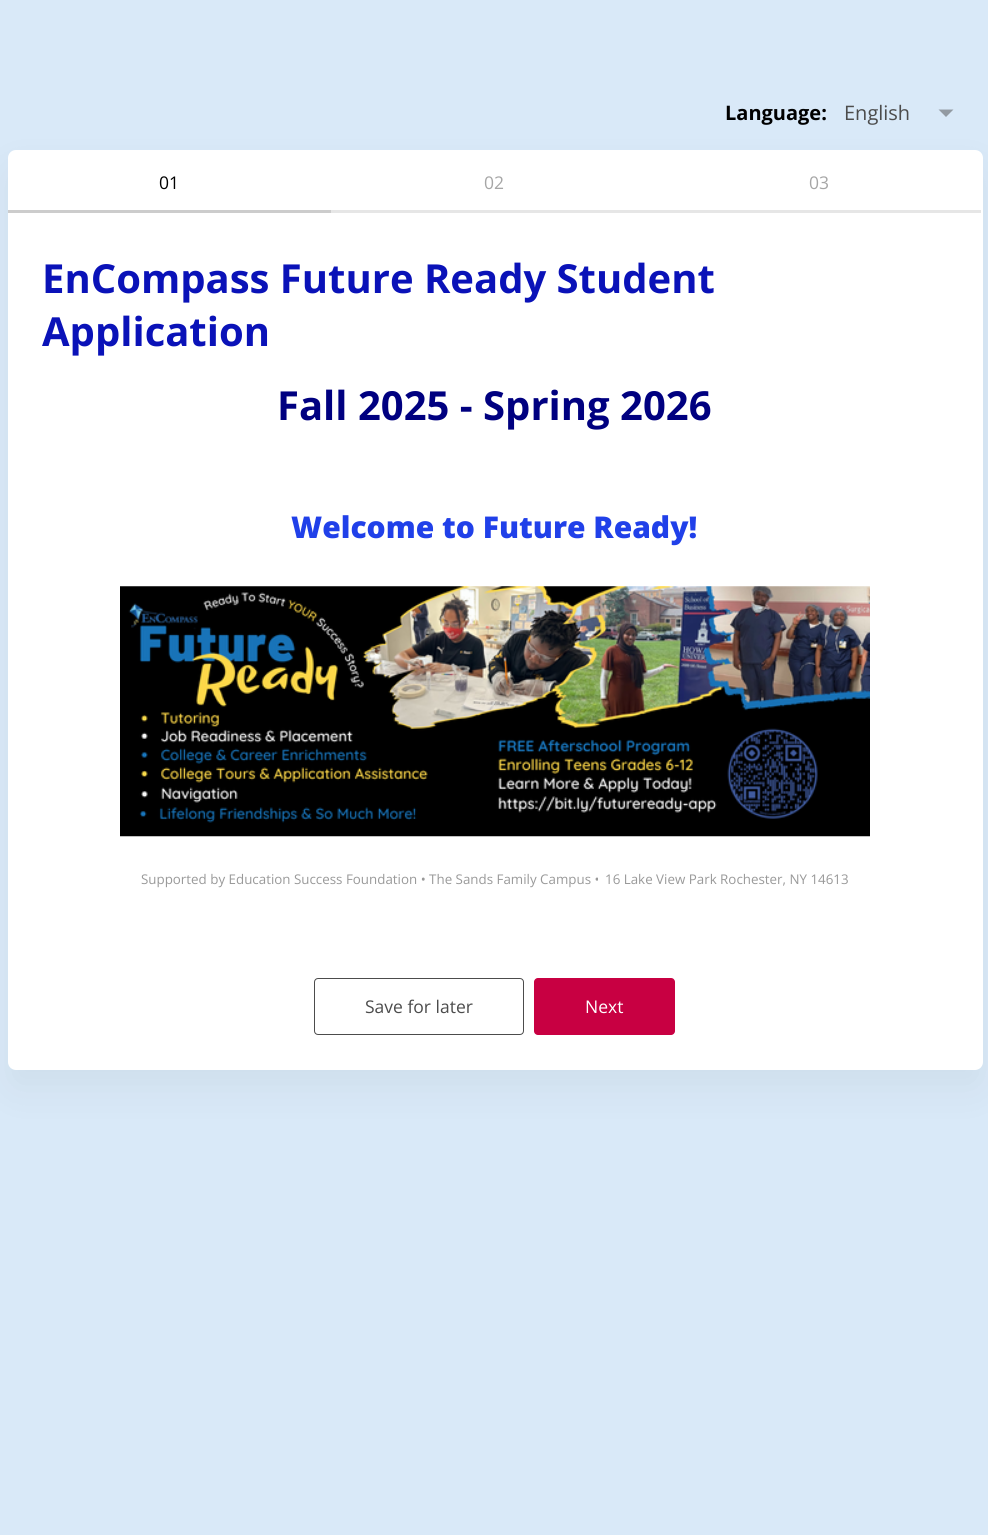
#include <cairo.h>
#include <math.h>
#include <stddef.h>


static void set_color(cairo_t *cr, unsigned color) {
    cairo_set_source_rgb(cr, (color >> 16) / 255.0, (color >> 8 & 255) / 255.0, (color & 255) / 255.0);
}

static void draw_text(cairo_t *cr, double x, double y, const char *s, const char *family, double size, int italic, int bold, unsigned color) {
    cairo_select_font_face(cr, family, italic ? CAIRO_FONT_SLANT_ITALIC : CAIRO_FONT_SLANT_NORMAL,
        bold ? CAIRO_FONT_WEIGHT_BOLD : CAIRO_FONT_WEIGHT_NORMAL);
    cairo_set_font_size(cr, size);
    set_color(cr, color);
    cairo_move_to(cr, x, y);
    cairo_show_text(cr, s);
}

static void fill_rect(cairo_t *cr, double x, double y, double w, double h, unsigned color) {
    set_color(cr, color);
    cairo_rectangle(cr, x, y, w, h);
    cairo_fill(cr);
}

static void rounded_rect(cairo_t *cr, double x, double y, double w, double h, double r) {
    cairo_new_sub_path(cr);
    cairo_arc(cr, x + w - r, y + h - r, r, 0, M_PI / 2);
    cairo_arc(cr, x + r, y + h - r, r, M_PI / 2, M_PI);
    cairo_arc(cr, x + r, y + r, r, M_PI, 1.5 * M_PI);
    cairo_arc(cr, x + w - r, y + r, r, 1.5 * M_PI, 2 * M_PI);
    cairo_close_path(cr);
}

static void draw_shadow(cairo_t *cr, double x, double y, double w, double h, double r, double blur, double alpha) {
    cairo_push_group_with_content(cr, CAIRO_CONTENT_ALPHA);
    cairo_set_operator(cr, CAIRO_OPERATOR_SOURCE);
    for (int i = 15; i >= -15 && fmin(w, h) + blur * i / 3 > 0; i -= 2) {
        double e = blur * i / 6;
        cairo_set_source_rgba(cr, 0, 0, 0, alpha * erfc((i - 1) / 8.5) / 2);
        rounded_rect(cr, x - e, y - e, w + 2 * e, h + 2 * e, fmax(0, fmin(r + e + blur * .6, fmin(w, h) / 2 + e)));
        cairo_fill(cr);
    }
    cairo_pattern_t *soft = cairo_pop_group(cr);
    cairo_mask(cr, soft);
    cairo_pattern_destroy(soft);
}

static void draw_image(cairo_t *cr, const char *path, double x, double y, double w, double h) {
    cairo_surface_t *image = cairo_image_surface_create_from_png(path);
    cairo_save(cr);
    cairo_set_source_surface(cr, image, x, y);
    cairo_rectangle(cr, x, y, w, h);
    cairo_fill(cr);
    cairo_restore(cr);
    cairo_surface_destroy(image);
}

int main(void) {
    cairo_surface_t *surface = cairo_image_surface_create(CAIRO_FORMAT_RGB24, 988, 1535);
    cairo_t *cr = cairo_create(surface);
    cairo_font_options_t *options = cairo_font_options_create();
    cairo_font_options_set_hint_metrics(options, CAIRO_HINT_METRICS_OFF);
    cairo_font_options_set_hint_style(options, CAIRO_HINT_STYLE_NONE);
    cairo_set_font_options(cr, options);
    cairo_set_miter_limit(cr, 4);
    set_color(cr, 0xD9E9F8);
    cairo_paint(cr);
    set_color(cr, 0x000000);
    draw_shadow(cr, 8, 169, 975, 920, 8, 20, 0.05);
    set_color(cr, 0xFFFFFF);
    rounded_rect(cr, 8, 150, 975, 920, 8);
    cairo_fill(cr);
    draw_text(cr, 725, 120, "Language:", "Open Sans", 20, 0, 1, 0x000000);
    draw_text(cr, 844, 120, "English", "Open Sans", 20, 0, 0, 0x4C4C4C);
    set_color(cr, 0x929AA2);
    cairo_new_path(cr);
    cairo_move_to(cr, 938.5, 109.5);
    cairo_line_to(cr, 946, 117);
    cairo_line_to(cr, 953.5, 109.5);
    cairo_close_path(cr);
    cairo_fill(cr);
    fill_rect(cr, 8, 210, 323, 3, 0xCCCCCC);
    draw_text(cr, 159, 189, "01", "Open Sans", 17.5, 0, 0, 0x000000);
    fill_rect(cr, 331, 210, 650, 3, 0xE6E6E6);
    draw_text(cr, 484, 189, "02", "Open Sans", 17.5, 0, 0, 0xA6A6A6);
    draw_text(cr, 809, 189, "03", "Open Sans", 17.5, 0, 0, 0xA6A6A6);
    draw_text(cr, 42, 293, "EnCompass Future Ready Student", "Open Sans", 40, 0, 1, 0x0A12B8);
    draw_text(cr, 42, 346, "Application", "Open Sans", 40, 0, 1, 0x0A12B8);
    draw_text(cr, 277, 420, "Fall 2025 - Spring 2026", "Open Sans", 40, 0, 1, 0x000080);
    draw_text(cr, 291, 538, "Welcome to Future Ready!", "Open Sans ExtraBold", 30, 0, 0, 0x2040E9);
    draw_image(cr, "assets/img1.png", 120, 586, 750, 251);
    draw_text(cr, 141, 884, "Supported by Education Success Foundation • The Sands Family Campus •", "Open Sans", 13.35, 0, 0, 0x999999);
    draw_text(cr, 605, 884, "16 Lake View Park Rochester, NY 14613", "Open Sans", 13.35, 0, 0, 0x999999);
    rounded_rect(cr, 314.5, 978.5, 209, 56, 3.5);
    set_color(cr, 0x4C4C4C);
    cairo_set_line_width(cr, 1);
    cairo_stroke(cr);
    draw_text(cr, 365, 1013, "Save for later", "Open Sans", 17.5, 0, 0, 0x4C4C4C);
    set_color(cr, 0xC80042);
    rounded_rect(cr, 534, 978, 141, 57, 4);
    cairo_fill(cr);
    draw_text(cr, 585, 1013, "Next", "Open Sans", 17.5, 0, 0, 0xFFFFFF);
    cairo_surface_write_to_png(surface, "output.png");
    cairo_font_options_destroy(options);
    cairo_destroy(cr);
    cairo_surface_destroy(surface);
    return 0;
}
